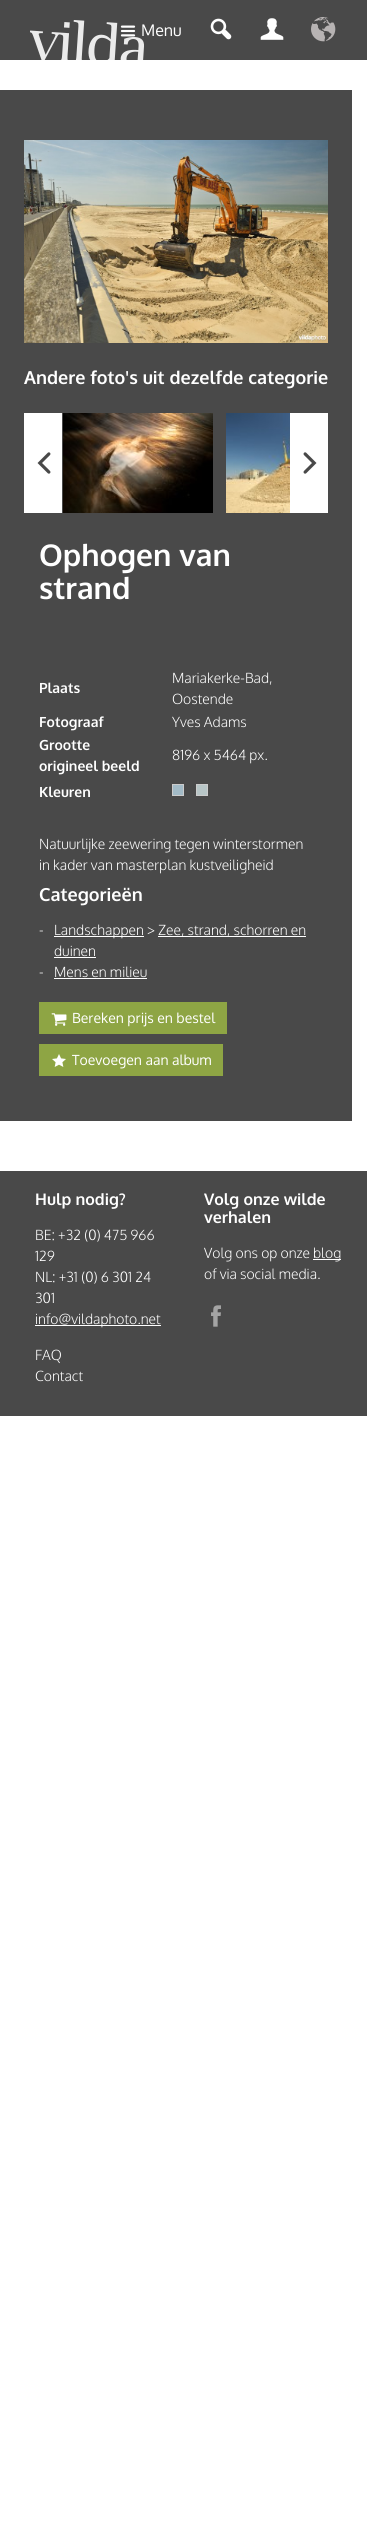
#include <cairo.h>
#include <math.h>
#include <stddef.h>


static void set_color(cairo_t *cr, unsigned color) {
    cairo_set_source_rgb(cr, (color >> 16) / 255.0, (color >> 8 & 255) / 255.0, (color & 255) / 255.0);
}

static void draw_text(cairo_t *cr, double x, double y, const char *s, const char *family, double size, int italic, int bold, unsigned color) {
    cairo_select_font_face(cr, family, italic ? CAIRO_FONT_SLANT_ITALIC : CAIRO_FONT_SLANT_NORMAL,
        bold ? CAIRO_FONT_WEIGHT_BOLD : CAIRO_FONT_WEIGHT_NORMAL);
    cairo_set_font_size(cr, size);
    set_color(cr, color);
    cairo_move_to(cr, x, y);
    cairo_show_text(cr, s);
}

static void fill_rect(cairo_t *cr, double x, double y, double w, double h, unsigned color) {
    set_color(cr, color);
    cairo_rectangle(cr, x, y, w, h);
    cairo_fill(cr);
}

static void draw_image(cairo_t *cr, const char *path, double x, double y, double w, double h) {
    cairo_surface_t *image = cairo_image_surface_create_from_png(path);
    cairo_save(cr);
    cairo_set_source_surface(cr, image, x, y);
    cairo_rectangle(cr, x, y, w, h);
    cairo_fill(cr);
    cairo_restore(cr);
    cairo_surface_destroy(image);
}

int main(void) {
    cairo_surface_t *surface = cairo_image_surface_create(CAIRO_FORMAT_RGB24, 367, 2533);
    cairo_t *cr = cairo_create(surface);
    cairo_font_options_t *options = cairo_font_options_create();
    cairo_font_options_set_hint_metrics(options, CAIRO_HINT_METRICS_OFF);
    cairo_font_options_set_hint_style(options, CAIRO_HINT_STYLE_NONE);
    cairo_set_font_options(cr, options);
    cairo_set_miter_limit(cr, 4);
    set_color(cr, 0xFFFFFF);
    cairo_paint(cr);
    fill_rect(cr, 0, 0, 367, 60, 0x494949);
    draw_image(cr, "assets/img1.png", 30, 20, 114, 40);
    draw_image(cr, "assets/img2.png", 120, 25, 16, 12);
    draw_text(cr, 141, 36, "Menu", "Oxygen", 16, 0, 0, 0xFFFFFF);
    draw_image(cr, "assets/img3.png", 210, 18, 22, 22);
    draw_image(cr, "assets/img4.png", 260, 18, 24, 22);
    draw_image(cr, "assets/img5.png", 311, 17, 25, 25);
    fill_rect(cr, 0, 90, 352, 1031, 0x494949);
    draw_image(cr, "assets/img6.png", 24, 140, 304, 203);
    draw_text(cr, 24, 384, "Andere foto's uit dezelfde categorie", "Oxygen", 18, 0, 1, 0xFFFFFF);
    fill_rect(cr, 24, 413, 38, 100, 0xFFFFFF);
    draw_image(cr, "assets/img7.png", 37, 452, 14, 22);
    fill_rect(cr, 290, 413, 38, 100, 0xFFFFFF);
    draw_image(cr, "assets/img8.png", 303, 452, 14, 22);
    draw_image(cr, "assets/img9.png", 63, 413, 150, 100);
    draw_image(cr, "assets/img10.png", 226, 413, 64, 100);
    draw_text(cr, 39, 566, "Ophogen van", "Oxygen", 30, 0, 1, 0xFFFFFF);
    draw_text(cr, 39, 599, "strand", "Oxygen", 30, 0, 1, 0xFFFFFF);
    draw_text(cr, 39, 693, "Plaats", "Oxygen", 14, 0, 1, 0xFFFFFF);
    draw_text(cr, 172, 683, "Mariakerke-Bad,", "Oxygen Light", 14, 0, 0, 0xFFFFFF);
    draw_text(cr, 172, 704, "Oostende", "Oxygen Light", 14, 0, 0, 0xFFFFFF);
    draw_text(cr, 39, 727, "Fotograaf", "Oxygen", 14, 0, 1, 0xFFFFFF);
    draw_text(cr, 172, 727, "Yves Adams", "Oxygen Light", 14, 0, 0, 0xFFFFFF);
    draw_text(cr, 39, 750, "Grootte", "Oxygen", 14, 0, 1, 0xFFFFFF);
    draw_text(cr, 39, 771, "origineel beeld", "Oxygen", 14, 0, 1, 0xFFFFFF);
    draw_text(cr, 172, 760, "8196 x 5464 px.", "Oxygen Light", 14, 0, 0, 0xFFFFFF);
    draw_text(cr, 39, 797, "Kleuren", "Oxygen", 14, 0, 1, 0xFFFFFF);
    set_color(cr, 0xA3BBC7);
    cairo_rectangle(cr, 172.5, 784.5, 11, 11);
    cairo_fill_preserve(cr);
    set_color(cr, 0xCCCCCC);
    cairo_set_line_width(cr, 1);
    cairo_stroke(cr);
    set_color(cr, 0xB8C6C7);
    cairo_rectangle(cr, 196.5, 784.5, 11, 11);
    cairo_fill_preserve(cr);
    set_color(cr, 0xCCCCCC);
    cairo_stroke(cr);
    draw_text(cr, 39, 849, "Natuurlijke zeewering tegen winterstormen", "Oxygen Light", 14, 0, 0, 0xFFFFFF);
    draw_text(cr, 39, 870, "in kader van masterplan kustveiligheid", "Oxygen Light", 14, 0, 0, 0xFFFFFF);
    draw_text(cr, 39, 901, "Categorieën", "Oxygen", 18, 0, 1, 0xFFFFFF);
    draw_text(cr, 39, 935, "-", "Oxygen Light", 14, 0, 0, 0xFFFFFF);
    fill_rect(cr, 54, 936, 90, 1, 0xFFFFFF);
    draw_text(cr, 54, 935, "Landschappen >", "Oxygen Light", 14, 0, 0, 0xFFFFFF);
    fill_rect(cr, 158, 936, 148, 1, 0xFFFFFF);
    draw_text(cr, 158, 935, "Zee, strand, schorren en", "Oxygen Light", 14, 0, 0, 0xFFFFFF);
    draw_text(cr, 54, 956, "duinen", "Oxygen Light", 14, 0, 0, 0xFFFFFF);
    fill_rect(cr, 54, 957, 42, 1, 0xFFFFFF);
    draw_text(cr, 39, 977, "-", "Oxygen Light", 14, 0, 0, 0xFFFFFF);
    draw_text(cr, 54, 977, "Mens en milieu", "Oxygen Light", 14, 0, 0, 0xFFFFFF);
    fill_rect(cr, 54, 978, 93, 1, 0xFFFFFF);
    fill_rect(cr, 39, 1002, 188, 32, 0x8EA544);
    draw_image(cr, "assets/img11.png", 51, 1013, 16, 13);
    draw_text(cr, 72, 1023, "Bereken prijs en bestel", "Oxygen", 14, 0, 0, 0xFFFFFF);
    fill_rect(cr, 39, 1044, 184, 32, 0x8EA544);
    draw_image(cr, "assets/img12.png", 52, 1054, 14, 13);
    draw_text(cr, 72, 1065, "Toevoegen aan album", "Oxygen", 14, 0, 0, 0xFFFFFF);
    fill_rect(cr, 0, 1171, 367, 245, 0x494949);
    draw_text(cr, 35, 1205, "Hulp nodig?", "Oxygen", 16, 0, 1, 0xFFFFFF);
    draw_text(cr, 35, 1240, "BE: +32 (0) 475 966", "Oxygen Light", 14, 0, 0, 0xFFFFFF);
    draw_text(cr, 35, 1261, "129", "Oxygen Light", 14, 0, 0, 0xFFFFFF);
    draw_text(cr, 35, 1282, "NL: +31 (0) 6 301 24", "Oxygen Light", 14, 0, 0, 0xFFFFFF);
    draw_text(cr, 35, 1303, "301", "Oxygen Light", 14, 0, 0, 0xFFFFFF);
    fill_rect(cr, 35, 1325, 126, 1, 0xFFFFFF);
    draw_text(cr, 35, 1324, "info@vildaphoto.net", "Oxygen Light", 14, 0, 0, 0xFFFFFF);
    draw_text(cr, 35, 1360, "FAQ", "Oxygen Light", 14, 0, 0, 0xFFFFFF);
    draw_text(cr, 35, 1381, "Contact", "Oxygen Light", 14, 0, 0, 0xFFFFFF);
    draw_text(cr, 204, 1205, "Volg onze wilde", "Oxygen", 16, 0, 1, 0xFFFFFF);
    draw_text(cr, 204, 1223, "verhalen", "Oxygen", 16, 0, 1, 0xFFFFFF);
    draw_text(cr, 204, 1258, "Volg ons op onze", "Oxygen Light", 14, 0, 0, 0xFFFFFF);
    fill_rect(cr, 313, 1259, 28, 1, 0xFFFFFF);
    draw_text(cr, 313, 1258, "blog", "Oxygen Light", 14, 0, 0, 0xFFFFFF);
    draw_text(cr, 204, 1279, "of via social media.", "Oxygen Light", 14, 0, 0, 0xFFFFFF);
    draw_image(cr, "assets/img13.png", 211, 1305, 10, 22);
    cairo_surface_write_to_png(surface, "output.png");
    cairo_font_options_destroy(options);
    cairo_destroy(cr);
    cairo_surface_destroy(surface);
    return 0;
}
